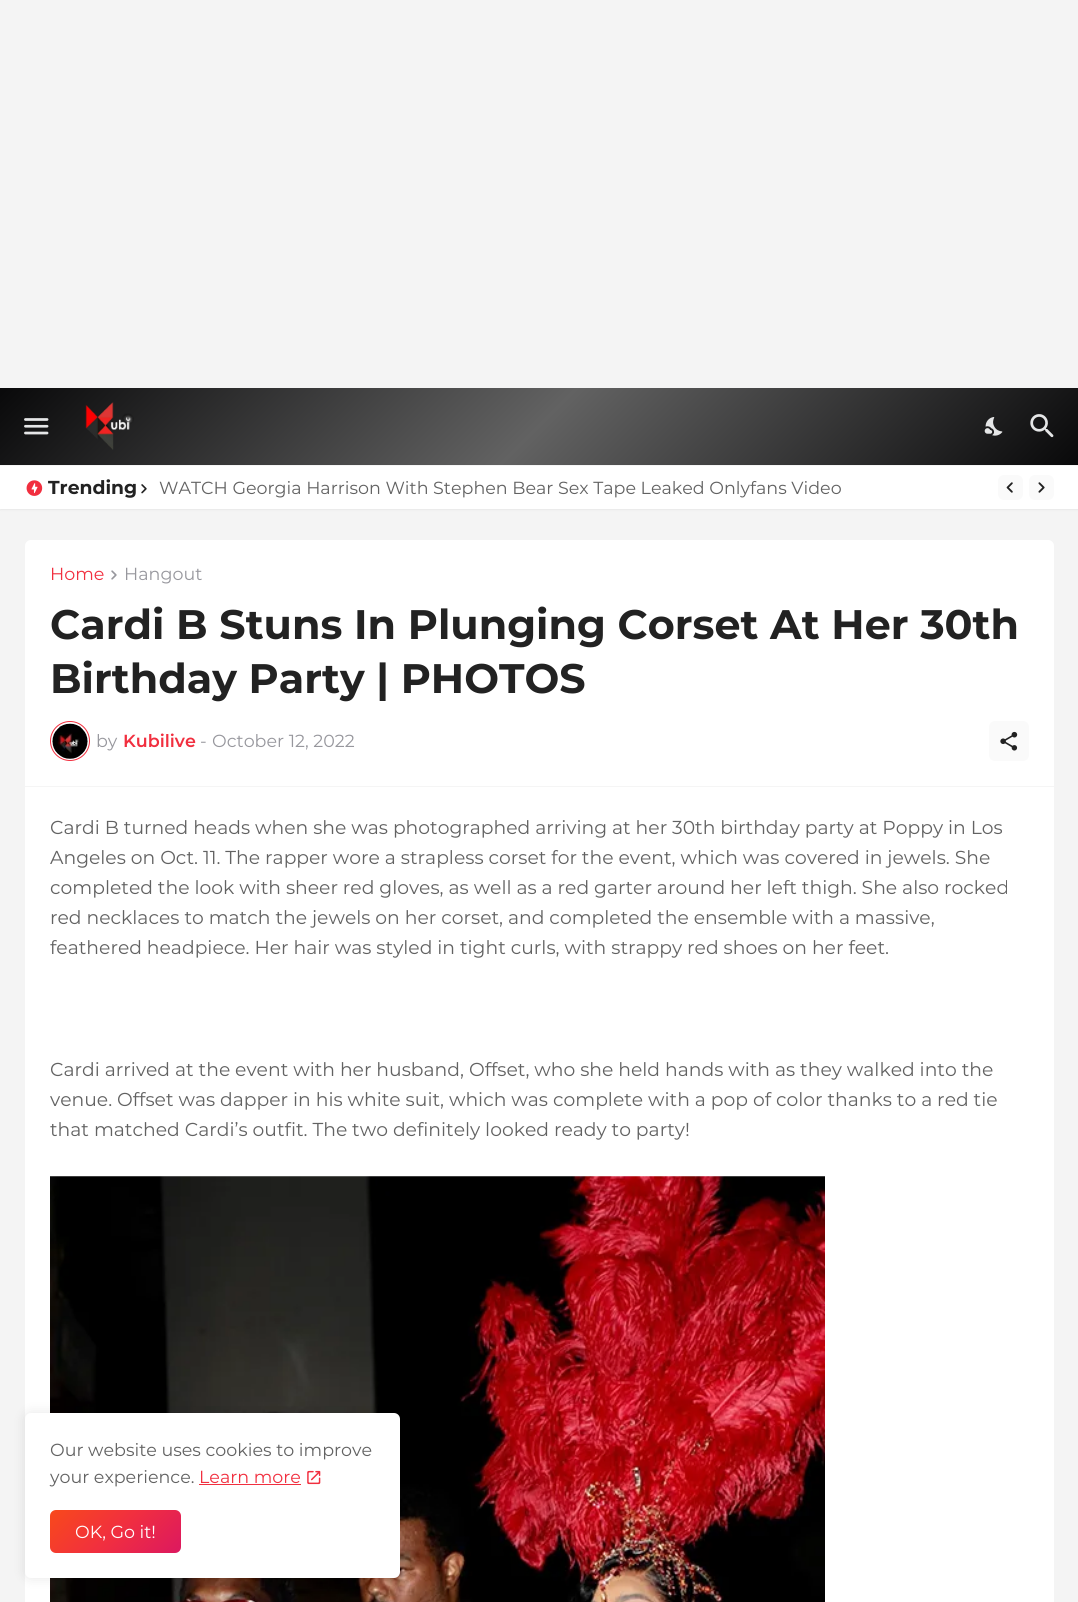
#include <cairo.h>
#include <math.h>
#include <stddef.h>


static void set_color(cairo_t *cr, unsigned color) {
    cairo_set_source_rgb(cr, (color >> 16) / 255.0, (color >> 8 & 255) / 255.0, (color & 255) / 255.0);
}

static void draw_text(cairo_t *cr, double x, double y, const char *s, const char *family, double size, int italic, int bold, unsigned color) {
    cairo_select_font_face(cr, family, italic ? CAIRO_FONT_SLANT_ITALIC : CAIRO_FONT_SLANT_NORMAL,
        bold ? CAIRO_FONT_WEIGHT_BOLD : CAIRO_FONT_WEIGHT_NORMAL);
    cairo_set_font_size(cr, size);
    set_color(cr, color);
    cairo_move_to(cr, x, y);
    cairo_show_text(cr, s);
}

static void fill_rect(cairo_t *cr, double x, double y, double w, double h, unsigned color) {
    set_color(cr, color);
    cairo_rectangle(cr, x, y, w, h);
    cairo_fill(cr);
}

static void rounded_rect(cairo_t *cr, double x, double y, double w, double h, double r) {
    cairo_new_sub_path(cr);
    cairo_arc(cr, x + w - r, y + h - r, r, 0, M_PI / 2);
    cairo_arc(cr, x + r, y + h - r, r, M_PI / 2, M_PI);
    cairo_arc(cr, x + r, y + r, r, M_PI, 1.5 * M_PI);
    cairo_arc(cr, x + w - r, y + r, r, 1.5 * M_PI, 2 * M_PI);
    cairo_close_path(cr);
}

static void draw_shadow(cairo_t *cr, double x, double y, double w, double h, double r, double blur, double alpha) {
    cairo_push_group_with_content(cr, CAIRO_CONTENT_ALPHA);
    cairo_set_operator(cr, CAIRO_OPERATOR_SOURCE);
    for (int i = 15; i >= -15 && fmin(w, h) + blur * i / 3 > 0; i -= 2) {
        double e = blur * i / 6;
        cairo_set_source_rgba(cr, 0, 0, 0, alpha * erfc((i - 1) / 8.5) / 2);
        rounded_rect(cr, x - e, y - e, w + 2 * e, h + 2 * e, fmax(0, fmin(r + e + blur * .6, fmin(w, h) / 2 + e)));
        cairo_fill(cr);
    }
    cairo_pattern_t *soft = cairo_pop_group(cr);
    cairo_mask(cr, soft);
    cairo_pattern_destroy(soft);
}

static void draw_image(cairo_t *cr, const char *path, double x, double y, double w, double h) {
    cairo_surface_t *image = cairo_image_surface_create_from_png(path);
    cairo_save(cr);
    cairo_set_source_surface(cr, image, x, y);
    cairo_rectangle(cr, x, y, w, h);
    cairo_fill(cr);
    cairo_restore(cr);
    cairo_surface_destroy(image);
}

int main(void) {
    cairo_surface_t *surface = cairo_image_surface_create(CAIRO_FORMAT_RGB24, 1078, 1602);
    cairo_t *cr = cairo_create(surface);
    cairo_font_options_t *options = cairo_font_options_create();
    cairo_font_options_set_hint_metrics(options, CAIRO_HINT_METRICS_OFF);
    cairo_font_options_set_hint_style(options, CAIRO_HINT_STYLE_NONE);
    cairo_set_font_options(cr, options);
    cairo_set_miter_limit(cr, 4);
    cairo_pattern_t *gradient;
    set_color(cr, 0xF4F4F4);
    cairo_paint(cr);
    gradient = cairo_pattern_create_linear(250, 137, 828, 715);
    cairo_pattern_add_color_stop_rgba(gradient, 0, 0.035, 0.035, 0.039, 1);
    cairo_pattern_add_color_stop_rgba(gradient, 0.5, 0.384, 0.384, 0.384, 1);
    cairo_pattern_add_color_stop_rgba(gradient, 1, 0.035, 0.035, 0.039, 1);
    cairo_set_source(cr, gradient);
    cairo_pattern_destroy(gradient);
    cairo_rectangle(cr, 0, 388, 1078, 77);
    cairo_fill(cr);
    draw_image(cr, "assets/img1.png", 24, 418, 25, 17);
    draw_image(cr, "assets/img2.png", 85, 402, 49, 48);
    draw_image(cr, "assets/img3.png", 984, 417, 19, 19);
    draw_image(cr, "assets/img4.png", 1030, 414, 24, 24);
    set_color(cr, 0x000000);
    draw_shadow(cr, 0, 466, 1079, 44, 0, 1, 0.05);
    fill_rect(cr, 0, 466, 1078, 43, 0xFFFFFF);
    fill_rect(cr, 0, 465, 1078, 1, 0xF5F5F5);
    draw_image(cr, "assets/img5.png", 26, 480, 17, 16);
    draw_text(cr, 48, 494, "Trending", "Montserrat", 18.75, 0, 1, 0x222222);
    draw_image(cr, "assets/img6.png", 141, 484, 6, 10);
    draw_text(cr, 159, 494, "WATCH Georgia Harrison With Stephen Bear Sex Tape Leaked Onlyfans Video", "Montserrat", 17.5, 0, 0, 0x626262);
    set_color(cr, 0xFAFAFA);
    rounded_rect(cr, 998, 475, 25, 25, 6);
    cairo_fill(cr);
    draw_image(cr, "assets/img7.png", 1006, 482, 7, 11);
    rounded_rect(cr, 1029, 475, 25, 25, 6);
    cairo_fill(cr);
    draw_image(cr, "assets/img8.png", 1038, 482, 7, 11);
    set_color(cr, 0xFFFFFF);
    rounded_rect(cr, 25, 540, 1029, 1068, 6);
    cairo_fill(cr);
    fill_rect(cr, 25, 786, 1029, 1, 0xF5F5F5);
    draw_text(cr, 50, 580, "Home", "Montserrat", 17.5, 0, 0, 0xF12F3F);
    draw_image(cr, "assets/img9.png", 111, 570, 6, 10);
    draw_text(cr, 124, 580, "Hangout", "Montserrat", 17.5, 0, 0, 0x97979D);
    draw_text(cr, 50, 639, "Cardi B Stuns In Plunging Corset At Her 30th", "Montserrat", 41.25, 0, 1, 0x222222);
    draw_text(cr, 50, 693, "Birthday Party | PHOTOS", "Montserrat", 41.25, 0, 1, 0x222222);
    cairo_new_path(cr);
    cairo_arc(cr, 70, 741, 19.5, 0, 2 * M_PI);
    set_color(cr, 0xF12F3F);
    cairo_set_line_width(cr, 1);
    cairo_stroke(cr);
    draw_image(cr, "assets/img10.png", 52, 723, 36, 36);
    draw_text(cr, 96, 747, "by", "Montserrat", 17.5, 0, 0, 0x97979D);
    draw_text(cr, 123, 747, "Kubilive", "Montserrat SemiBold", 17.5, 0, 0, 0xF12F3F);
    draw_text(cr, 200, 747, "-", "Montserrat", 17.5, 0, 0, 0x97979D);
    draw_text(cr, 212, 747, "October 12, 2022", "Montserrat", 17.5, 0, 0, 0x97979D);
    set_color(cr, 0xFAFAFA);
    rounded_rect(cr, 989, 721, 40, 40, 6);
    cairo_fill(cr);
    draw_image(cr, "assets/img11.png", 1000, 731, 18, 20);
    draw_text(cr, 50, 834, "Cardi B turned heads when she was photographed arriving at her 30th birthday party at Poppy in Los", "Montserrat", 18.75, 0, 0, 0x626262);
    draw_text(cr, 50, 864, "Angeles on Oct. 11. The rapper wore a strapless corset for the event, which was covered in jewels. She", "Montserrat", 18.75, 0, 0, 0x626262);
    draw_text(cr, 50, 894, "completed the look with sheer red gloves, as well as a red garter around her left thigh. She also rocked", "Montserrat", 18.75, 0, 0, 0x626262);
    draw_text(cr, 50, 924, "red necklaces to match the jewels on her corset, and completed the ensemble with a massive,", "Montserrat", 18.75, 0, 0, 0x626262);
    draw_text(cr, 50, 954, "feathered headpiece. Her hair was styled in tight curls, with strappy red shoes on her feet.", "Montserrat", 18.75, 0, 0, 0x626262);
    draw_text(cr, 50, 1076, "Cardi arrived at the event with her husband, Offset, who she held hands with as they walked into the", "Montserrat", 18.75, 0, 0, 0x626262);
    draw_text(cr, 50, 1106, "venue. Offset was dapper in his white suit, which was complete with a pop of color thanks to a red tie", "Montserrat", 18.75, 0, 0, 0x626262);
    draw_text(cr, 50, 1136, "that matched Cardi’s outfit. The two definitely looked ready to party!", "Montserrat", 18.75, 0, 0, 0x626262);
    draw_image(cr, "assets/img12.png", 50, 1176, 775, 426);
    set_color(cr, 0x000000);
    draw_shadow(cr, 25, 1413, 375, 165, 6, 6, 0.1);
    set_color(cr, 0xFFFFFF);
    rounded_rect(cr, 25, 1413, 375, 165, 6);
    cairo_fill(cr);
    draw_text(cr, 50, 1456, "Our website uses cookies to improve", "Montserrat", 17.5, 0, 0, 0x626262);
    draw_text(cr, 50, 1483, "your experience.", "Montserrat", 17.5, 0, 0, 0x626262);
    draw_text(cr, 199, 1483, "Learn more", "Montserrat", 17.5, 0, 0, 0xF12F3F);
    fill_rect(cr, 199, 1484, 102, 1, 0xF12F3F);
    draw_image(cr, "assets/img13.png", 307, 1470, 14, 15);
    gradient = cairo_pattern_create_linear(72, 1488, 159, 1575);
    cairo_pattern_add_color_stop_rgba(gradient, 0, 0.973, 0.286, 0.106, 1);
    cairo_pattern_add_color_stop_rgba(gradient, 0.5, 0.945, 0.184, 0.247, 1);
    cairo_pattern_add_color_stop_rgba(gradient, 1, 0.863, 0.094, 0.376, 1);
    cairo_set_source(cr, gradient);
    cairo_pattern_destroy(gradient);
    rounded_rect(cr, 50, 1510, 131, 43, 6);
    cairo_fill(cr);
    draw_text(cr, 75, 1538, "OK, Go it!", "Montserrat", 17.5, 0, 0, 0xFFFFFF);
    cairo_surface_write_to_png(surface, "output.png");
    cairo_font_options_destroy(options);
    cairo_destroy(cr);
    cairo_surface_destroy(surface);
    return 0;
}
